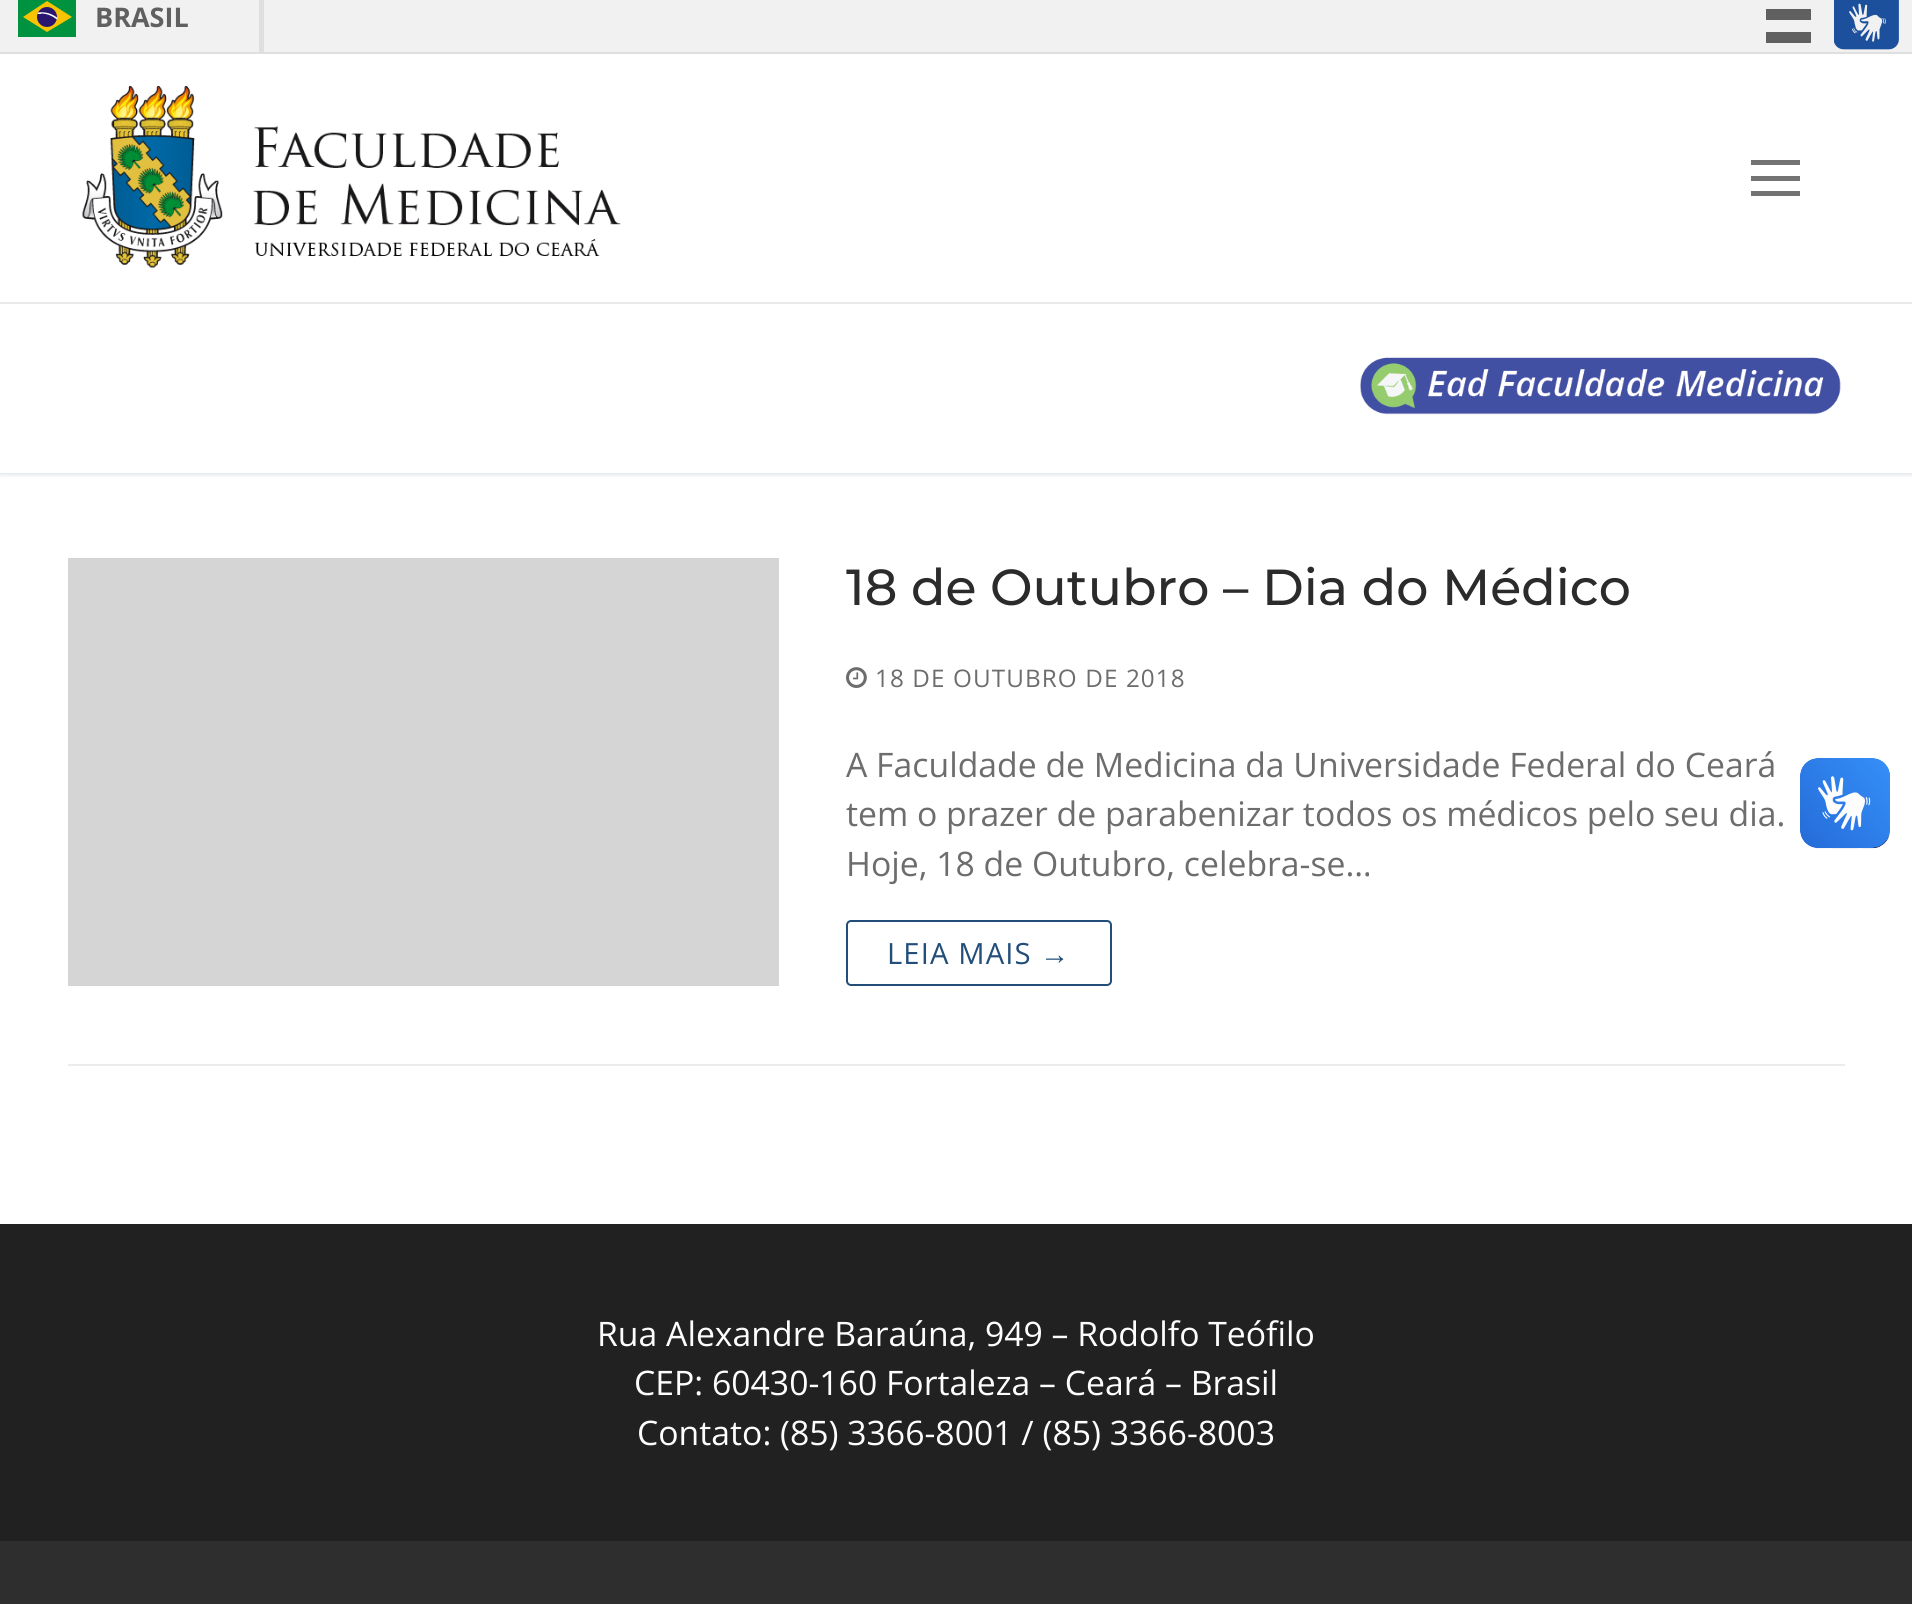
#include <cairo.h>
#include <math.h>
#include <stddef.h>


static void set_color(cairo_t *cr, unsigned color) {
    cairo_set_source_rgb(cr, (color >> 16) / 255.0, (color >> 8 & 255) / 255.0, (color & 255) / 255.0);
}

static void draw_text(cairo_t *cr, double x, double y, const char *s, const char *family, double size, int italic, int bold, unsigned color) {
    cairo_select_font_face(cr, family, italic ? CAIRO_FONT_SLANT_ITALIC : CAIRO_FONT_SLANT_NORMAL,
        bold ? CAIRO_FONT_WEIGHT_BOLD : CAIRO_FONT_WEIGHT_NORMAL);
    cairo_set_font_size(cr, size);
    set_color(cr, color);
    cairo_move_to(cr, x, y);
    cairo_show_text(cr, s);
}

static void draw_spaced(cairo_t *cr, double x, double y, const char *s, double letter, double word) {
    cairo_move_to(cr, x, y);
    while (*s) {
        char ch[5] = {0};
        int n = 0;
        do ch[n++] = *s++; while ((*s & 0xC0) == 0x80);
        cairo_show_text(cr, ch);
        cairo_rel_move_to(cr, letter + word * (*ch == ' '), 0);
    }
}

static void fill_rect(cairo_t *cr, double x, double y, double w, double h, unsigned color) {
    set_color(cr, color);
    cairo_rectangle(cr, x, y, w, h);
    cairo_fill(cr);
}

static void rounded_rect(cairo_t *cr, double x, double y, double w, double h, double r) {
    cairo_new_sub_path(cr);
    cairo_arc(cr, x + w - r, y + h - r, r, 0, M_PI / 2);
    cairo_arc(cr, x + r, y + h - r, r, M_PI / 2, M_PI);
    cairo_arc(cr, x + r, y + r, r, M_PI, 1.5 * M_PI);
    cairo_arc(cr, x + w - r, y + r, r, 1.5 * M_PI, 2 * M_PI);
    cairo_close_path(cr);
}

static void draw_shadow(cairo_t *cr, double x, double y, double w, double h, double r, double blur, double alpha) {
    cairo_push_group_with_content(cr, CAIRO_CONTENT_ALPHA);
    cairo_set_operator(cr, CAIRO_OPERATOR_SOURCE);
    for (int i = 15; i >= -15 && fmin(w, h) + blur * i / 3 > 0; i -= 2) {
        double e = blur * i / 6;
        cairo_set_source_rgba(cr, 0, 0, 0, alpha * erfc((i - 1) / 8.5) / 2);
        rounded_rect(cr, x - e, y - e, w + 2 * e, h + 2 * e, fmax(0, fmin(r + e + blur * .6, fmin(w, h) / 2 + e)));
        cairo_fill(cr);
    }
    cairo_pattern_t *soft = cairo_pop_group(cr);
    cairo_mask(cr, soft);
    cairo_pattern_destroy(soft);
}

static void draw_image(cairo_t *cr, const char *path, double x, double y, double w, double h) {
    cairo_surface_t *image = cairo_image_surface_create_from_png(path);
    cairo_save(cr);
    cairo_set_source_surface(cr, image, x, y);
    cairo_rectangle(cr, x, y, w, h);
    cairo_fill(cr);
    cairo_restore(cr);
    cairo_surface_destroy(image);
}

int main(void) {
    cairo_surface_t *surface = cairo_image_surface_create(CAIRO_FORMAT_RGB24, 1912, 1604);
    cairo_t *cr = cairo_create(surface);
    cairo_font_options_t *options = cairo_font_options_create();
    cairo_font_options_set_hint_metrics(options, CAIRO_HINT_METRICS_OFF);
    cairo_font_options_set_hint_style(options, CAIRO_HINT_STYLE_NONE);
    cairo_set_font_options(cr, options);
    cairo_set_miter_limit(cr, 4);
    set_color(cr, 0xFFFFFF);
    cairo_paint(cr);
    fill_rect(cr, 0, 0, 1912, 52, 0xF1F1F1);
    fill_rect(cr, 0, 52, 1912, 2, 0xDFDFDF);
    fill_rect(cr, 259, 0, 5, 52, 0xDFDFDF);
    fill_rect(cr, 18, 0, 58, 37, 0x00923F);
    set_color(cr, 0xF8C300);
    cairo_new_path(cr);
    cairo_move_to(cr, 47, 1);
    cairo_line_to(cr, 23, 17);
    cairo_line_to(cr, 47, 32);
    cairo_line_to(cr, 72, 17);
    cairo_close_path(cr);
    cairo_fill(cr);
    set_color(cr, 0x28166F);
    cairo_arc(cr, 47, 17, 10, 0, 2 * M_PI);
    cairo_fill(cr);
    set_color(cr, 0xFFFFFF);
    cairo_new_path(cr);
    cairo_move_to(cr, 41, 13.5);
    cairo_curve_to(cr, 47, 13.5, 52.5, 16, 57, 19.5);
    cairo_line_to(cr, 57.5, 18);
    cairo_curve_to(cr, 52, 13.5, 45, 11.5, 38, 12.5);
    cairo_line_to(cr, 37.5, 14);
    cairo_line_to(cr, 41, 14);
    cairo_close_path(cr);
    cairo_fill(cr);
    draw_text(cr, 95, 27, "BRASIL", "Open Sans", 27, 0, 1, 0x606060);
    fill_rect(cr, 1766, 9, 45, 11, 0x606060);
    fill_rect(cr, 1766, 32, 45, 11, 0x606060);
    draw_image(cr, "assets/img1.png", 1834, 0, 65, 50);
    fill_rect(cr, 0, 302, 1912, 2, 0xEAEAEA);
    draw_image(cr, "assets/img2.png", 82, 85, 539, 184);
    fill_rect(cr, 1751, 176, 49, 5, 0x737373);
    fill_rect(cr, 1751, 160, 49, 5, 0x737373);
    fill_rect(cr, 1751, 191, 49, 5, 0x737373);
    set_color(cr, 0xE1E5EA);
    draw_shadow(cr, 0, 306, 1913, 169, 0, 2, 1);
    fill_rect(cr, 0, 304, 1912, 169, 0xFFFFFF);
    draw_image(cr, "assets/img3.png", 1360, 357, 481, 58);
    fill_rect(cr, 68, 1064, 1777, 2, 0xEAECEE);
    fill_rect(cr, 68, 558, 711, 428, 0xD5D5D5);
    draw_text(cr, 846, 605, "18 de Outubro – Dia do Médico", "Montserrat Medium", 50.6, 0, 0, 0x2B2B2B);
    draw_image(cr, "assets/img4.png", 846, 667, 21, 21);
    cairo_select_font_face(cr, "Open Sans", CAIRO_FONT_SLANT_NORMAL, CAIRO_FONT_WEIGHT_NORMAL);
    cairo_set_font_size(cr, 24.25);
    set_color(cr, 0x6D6D6D);
    draw_spaced(cr, 875, 687, "18 DE OUTUBRO DE 2018", 1.1, 0);
    draw_text(cr, 846, 777, "A Faculdade de Medicina da Universidade Federal do Ceará", "Open Sans", 33.75, 0, 0, 0x6D6D6D);
    draw_text(cr, 846, 826, "tem o prazer de parabenizar todos os médicos pelo seu dia.", "Open Sans", 33.75, 0, 0, 0x6D6D6D);
    draw_text(cr, 846, 876, "Hoje, 18 de Outubro, celebra-se…", "Open Sans", 33.75, 0, 0, 0x6D6D6D);
    rounded_rect(cr, 847, 921, 264, 64, 4);
    set_color(cr, 0x234E7A);
    cairo_stroke(cr);
    cairo_set_font_size(cr, 29.25);
    draw_spaced(cr, 887, 964, "LEIA MAIS", 1.1, 0);
    cairo_select_font_face(cr, "Liberation Serif", CAIRO_FONT_SLANT_NORMAL, CAIRO_FONT_WEIGHT_NORMAL);
    draw_spaced(cr, 1040, 964, "→", 1.1, 0);
    fill_rect(cr, 0, 1224, 1912, 317, 0x212121);
    draw_text(cr, 597, 1346, "Rua Alexandre Baraúna, 949 – Rodolfo Teófilo", "Open Sans", 33.75, 0, 0, 0xFDFDFD);
    draw_text(cr, 634, 1395, "CEP: 60430-160 Fortaleza – Ceará – Brasil", "Open Sans", 33.75, 0, 0, 0xFDFDFD);
    draw_text(cr, 637, 1445, "Contato: (85) 3366-8001 / (85) 3366-8003", "Open Sans", 33.75, 0, 0, 0xFDFDFD);
    fill_rect(cr, 0, 1541, 1912, 63, 0x2E2E2E);
    draw_image(cr, "assets/img5.png", 1800, 758, 90, 91);
    draw_image(cr, "assets/img6.png", 1800, 758, 90, 90);
    cairo_surface_write_to_png(surface, "output.png");
    cairo_font_options_destroy(options);
    cairo_destroy(cr);
    cairo_surface_destroy(surface);
    return 0;
}
